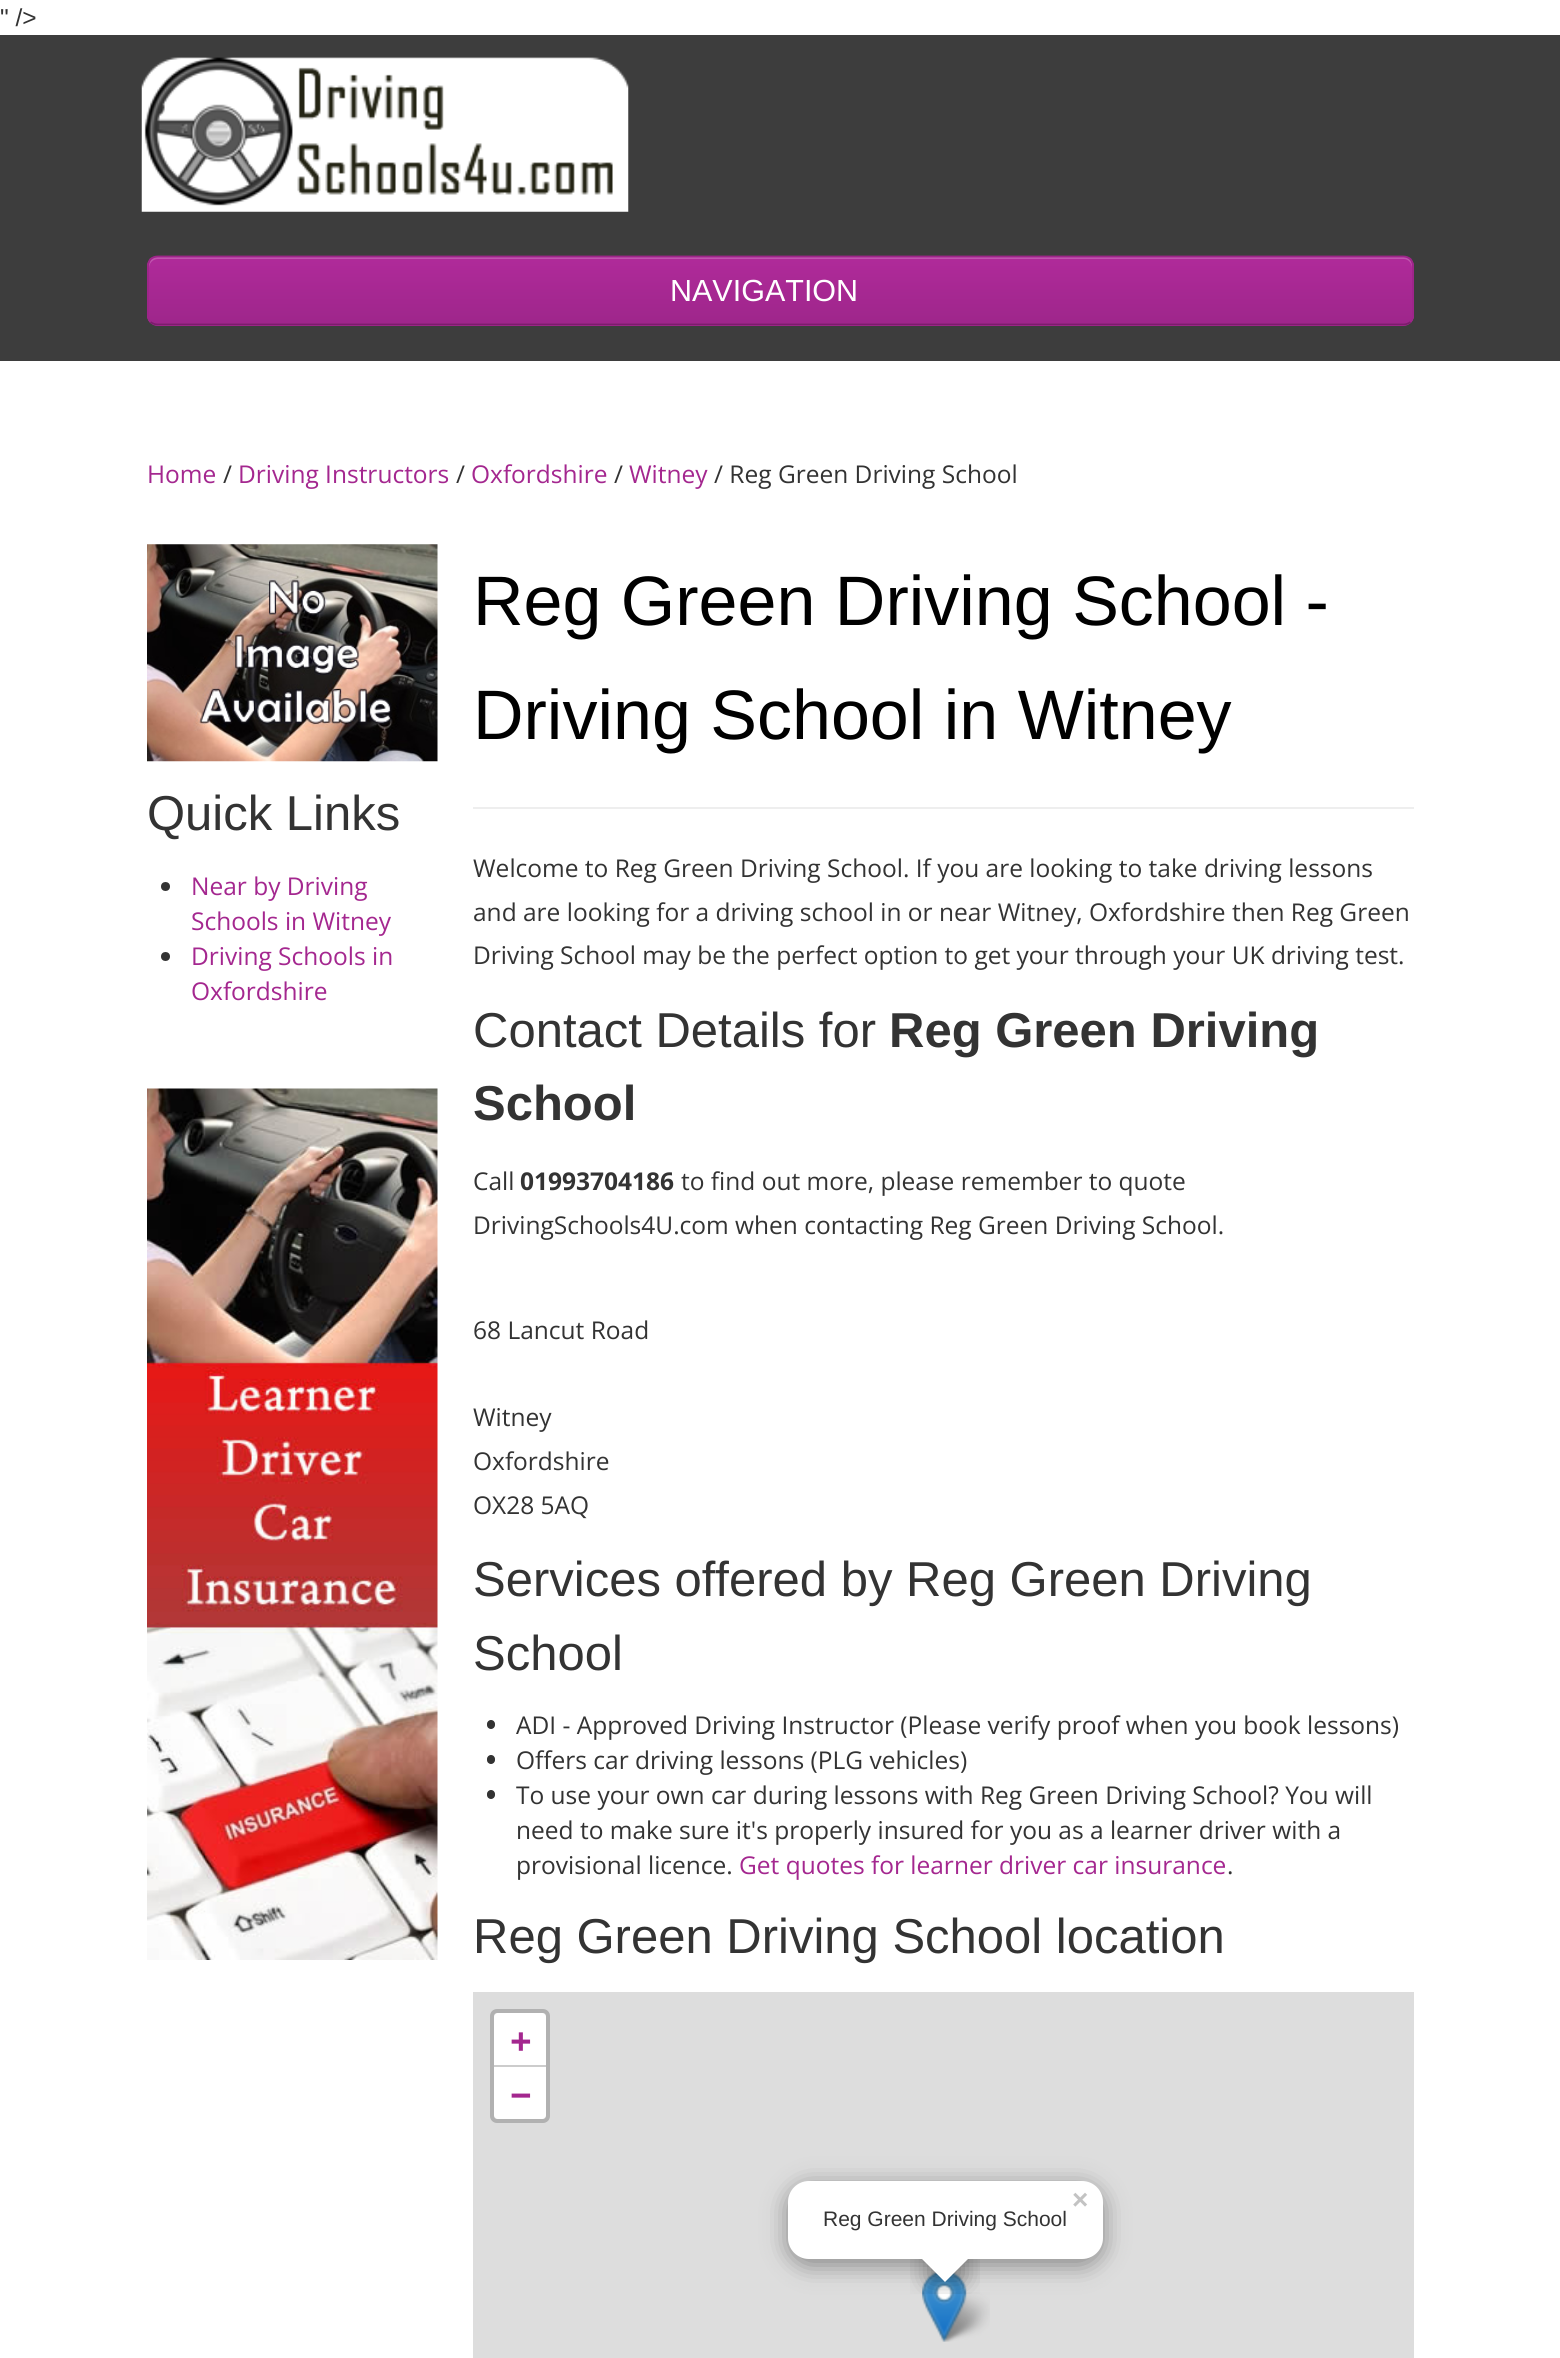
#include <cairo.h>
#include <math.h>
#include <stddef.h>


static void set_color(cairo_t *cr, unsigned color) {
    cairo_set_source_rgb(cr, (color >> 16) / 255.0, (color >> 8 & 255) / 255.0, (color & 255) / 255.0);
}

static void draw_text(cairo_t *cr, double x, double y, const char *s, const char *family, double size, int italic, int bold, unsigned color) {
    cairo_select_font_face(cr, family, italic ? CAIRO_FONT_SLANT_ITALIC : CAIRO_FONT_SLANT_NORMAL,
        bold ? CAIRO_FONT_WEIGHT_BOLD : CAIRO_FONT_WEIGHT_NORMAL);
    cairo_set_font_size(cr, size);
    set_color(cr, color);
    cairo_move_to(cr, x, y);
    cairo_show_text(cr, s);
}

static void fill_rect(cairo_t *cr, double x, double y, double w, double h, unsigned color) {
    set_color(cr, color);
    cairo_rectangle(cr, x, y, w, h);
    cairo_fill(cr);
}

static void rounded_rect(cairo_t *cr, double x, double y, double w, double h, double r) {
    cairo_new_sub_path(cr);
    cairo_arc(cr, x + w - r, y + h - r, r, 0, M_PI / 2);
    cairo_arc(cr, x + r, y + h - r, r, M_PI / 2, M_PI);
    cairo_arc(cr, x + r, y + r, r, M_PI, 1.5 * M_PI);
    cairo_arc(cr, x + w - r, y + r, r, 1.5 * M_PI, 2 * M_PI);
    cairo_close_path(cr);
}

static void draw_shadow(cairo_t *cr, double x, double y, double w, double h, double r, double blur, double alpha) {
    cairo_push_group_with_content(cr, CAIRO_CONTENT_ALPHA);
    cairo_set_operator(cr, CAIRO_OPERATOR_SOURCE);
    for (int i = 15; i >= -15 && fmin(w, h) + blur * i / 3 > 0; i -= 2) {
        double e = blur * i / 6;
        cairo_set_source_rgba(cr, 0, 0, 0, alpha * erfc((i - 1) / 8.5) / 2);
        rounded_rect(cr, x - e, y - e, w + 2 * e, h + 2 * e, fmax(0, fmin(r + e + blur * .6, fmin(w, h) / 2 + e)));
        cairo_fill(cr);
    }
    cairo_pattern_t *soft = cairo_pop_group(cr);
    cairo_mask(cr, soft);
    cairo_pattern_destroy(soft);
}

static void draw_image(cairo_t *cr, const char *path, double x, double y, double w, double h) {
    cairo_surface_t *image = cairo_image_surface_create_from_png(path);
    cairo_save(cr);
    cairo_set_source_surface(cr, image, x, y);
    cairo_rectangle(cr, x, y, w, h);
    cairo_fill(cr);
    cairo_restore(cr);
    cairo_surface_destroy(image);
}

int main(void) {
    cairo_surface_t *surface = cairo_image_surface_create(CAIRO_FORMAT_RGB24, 1560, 2358);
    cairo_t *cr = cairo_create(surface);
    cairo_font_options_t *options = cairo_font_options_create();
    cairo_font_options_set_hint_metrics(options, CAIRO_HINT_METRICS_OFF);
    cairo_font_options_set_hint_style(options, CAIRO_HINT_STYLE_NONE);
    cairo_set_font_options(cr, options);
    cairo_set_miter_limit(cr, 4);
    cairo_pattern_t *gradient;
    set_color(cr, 0xFFFFFF);
    cairo_paint(cr);
    draw_text(cr, 0, 26, "\" />", "Liberation Sans", 24.5, 0, 0, 0x333333);
    fill_rect(cr, 0, 35, 1560, 326, 0x3D3D3D);
    draw_image(cr, "assets/img1.png", 141, 57, 488, 155);
    set_color(cr, 0xB02A9A);
    rounded_rect(cr, 147, 256, 1267, 70, 11);
    cairo_fill(cr);
    cairo_save(cr);
    rounded_rect(cr, 147, 256, 1267, 70, 11);
    cairo_clip(cr);
    gradient = cairo_pattern_create_linear(781, 257, 781, 324);
    cairo_pattern_add_color_stop_rgba(gradient, 0, 0.69, 0.165, 0.604, 1);
    cairo_pattern_add_color_stop_rgba(gradient, 1, 0.62, 0.149, 0.545, 1);
    cairo_set_source(cr, gradient);
    cairo_pattern_destroy(gradient);
    cairo_rectangle(cr, 147, 257, 1267, 67);
    cairo_fill(cr);
    cairo_restore(cr);
    set_color(cr, 0xC055AE);
    cairo_new_path(cr);
    cairo_move_to(cr, 158, 259);
    cairo_line_to(cr, 1404, 259);
    cairo_curve_to(cr, 1408, 259, 1412, 263, 1412, 268);
    cairo_line_to(cr, 1412, 266);
    cairo_curve_to(cr, 1412, 261, 1408, 257, 1403, 257);
    cairo_line_to(cr, 158, 257);
    cairo_curve_to(cr, 153, 257, 149, 261, 149, 266);
    cairo_line_to(cr, 149, 268);
    cairo_curve_to(cr, 149, 263, 153, 259, 158, 259);
    cairo_close_path(cr);
    cairo_fill(cr);
    cairo_new_path(cr);
    cairo_move_to(cr, 1410.5, 322);
    cairo_curve_to(cr, 1408.5, 323.5, 1406, 324.5, 1403.5, 324.5);
    cairo_line_to(cr, 157.5, 324.5);
    cairo_curve_to(cr, 155, 324.5, 152.5, 323.5, 150.5, 322);
    set_color(cr, 0x7B1D6C);
    cairo_set_line_width(cr, 1.8);
    cairo_stroke(cr);
    cairo_new_path(cr);
    cairo_move_to(cr, 150.5, 322);
    cairo_curve_to(cr, 149, 320, 148, 317.5, 148, 315);
    cairo_line_to(cr, 148, 266);
    cairo_curve_to(cr, 148, 263.5, 149, 261, 150.5, 259);
    cairo_curve_to(cr, 152.5, 257.5, 155, 256.5, 157.5, 256.5);
    cairo_line_to(cr, 1403.5, 256.5);
    cairo_curve_to(cr, 1406, 256.5, 1408.5, 257.5, 1410.5, 259);
    cairo_curve_to(cr, 1412, 261, 1413, 263.5, 1413, 266);
    cairo_line_to(cr, 1413, 315);
    cairo_curve_to(cr, 1413, 317.5, 1412, 320, 1410.5, 322);
    set_color(cr, 0x9D2589);
    cairo_stroke(cr);
    draw_text(cr, 670, 301, "NAVIGATION", "Liberation Sans", 30.5, 0, 0, 0xFFFFFF);
    draw_text(cr, 147, 483, "Home", "Open Sans", 24.5, 0, 0, 0xA4278F);
    draw_text(cr, 223, 483, "/", "Open Sans", 24.5, 0, 0, 0x333333);
    draw_text(cr, 238, 483, "Driving Instructors", "Open Sans", 24.5, 0, 0, 0xA4278F);
    draw_text(cr, 456, 483, "/", "Open Sans", 24.5, 0, 0, 0x333333);
    draw_text(cr, 471, 483, "Oxfordshire", "Open Sans", 24.5, 0, 0, 0xA4278F);
    draw_text(cr, 614, 483, "/", "Open Sans", 24.5, 0, 0, 0x333333);
    draw_text(cr, 629, 483, "Witney", "Open Sans", 24.5, 0, 0, 0xA4278F);
    draw_text(cr, 714, 483, "/ Reg Green Driving School", "Open Sans", 24.5, 0, 0, 0x333333);
    draw_image(cr, "assets/img2.png", 147, 544, 291, 218);
    draw_text(cr, 147, 830, "Quick Links", "Liberation Sans", 49, 0, 0, 0x333333);
    cairo_new_path(cr);
    cairo_arc(cr, 165.5, 886.5, 4.5, 0, 2 * M_PI);
    cairo_fill(cr);
    draw_text(cr, 191, 895, "Near by Driving", "Open Sans", 24.5, 0, 0, 0xA4278F);
    draw_text(cr, 191, 930, "Schools in Witney", "Open Sans", 24.5, 0, 0, 0xA4278F);
    set_color(cr, 0x333333);
    cairo_new_path(cr);
    cairo_arc(cr, 165.5, 956.5, 4.5, 0, 2 * M_PI);
    cairo_fill(cr);
    draw_text(cr, 191, 965, "Driving Schools in", "Open Sans", 24.5, 0, 0, 0xA4278F);
    draw_text(cr, 191, 1000, "Oxfordshire", "Open Sans", 24.5, 0, 0, 0xA4278F);
    draw_image(cr, "assets/img3.png", 147, 1088, 291, 872);
    draw_text(cr, 473, 625, "Reg Green Driving School -", "Liberation Sans", 70, 0, 0, 0x000000);
    draw_text(cr, 473, 739, "Driving School in Witney", "Liberation Sans", 70, 0, 0, 0x000000);
    fill_rect(cr, 473, 807, 941, 2, 0xEEEEEE);
    draw_text(cr, 473, 877, "Welcome to Reg Green Driving School. If you are looking to take driving lessons", "Open Sans", 24.5, 0, 0, 0x333333);
    draw_text(cr, 473, 921, "and are looking for a driving school in or near Witney, Oxfordshire then Reg Green", "Open Sans", 24.5, 0, 0, 0x333333);
    draw_text(cr, 473, 964, "Driving School may be the perfect option to get your through your UK driving test.", "Open Sans", 24.5, 0, 0, 0x333333);
    draw_text(cr, 473, 1047, "Contact Details for", "Liberation Sans", 49, 0, 0, 0x333333);
    draw_text(cr, 889, 1047, "Reg Green Driving", "Liberation Sans", 49, 0, 1, 0x333333);
    draw_text(cr, 473, 1120, "School", "Liberation Sans", 49, 0, 1, 0x333333);
    draw_text(cr, 473, 1190, "Call", "Open Sans", 24.5, 0, 0, 0x333333);
    draw_text(cr, 520, 1190, "01993704186", "Open Sans", 24.5, 0, 1, 0x333333);
    draw_text(cr, 681, 1190, "to find out more, please remember to quote", "Open Sans", 24.5, 0, 0, 0x333333);
    draw_text(cr, 473, 1234, "DrivingSchools4U.com when contacting Reg Green Driving School.", "Open Sans", 24.5, 0, 0, 0x333333);
    draw_text(cr, 473, 1339, "68 Lancut Road", "Open Sans", 24.5, 0, 0, 0x333333);
    draw_text(cr, 473, 1426, "Witney", "Open Sans", 24.5, 0, 0, 0x333333);
    draw_text(cr, 473, 1470, "Oxfordshire", "Open Sans", 24.5, 0, 0, 0x333333);
    draw_text(cr, 473, 1514, "OX28 5AQ", "Open Sans", 24.5, 0, 0, 0x333333);
    draw_text(cr, 473, 1596, "Services offered by Reg Green Driving", "Liberation Sans", 49, 0, 0, 0x333333);
    draw_text(cr, 473, 1670, "School", "Liberation Sans", 49, 0, 0, 0x333333);
    rounded_rect(cr, 487, 1720, 8, 9, 4);
    cairo_fill(cr);
    draw_text(cr, 516, 1734, "ADI - Approved Driving Instructor (Please verify proof when you book lessons)", "Open Sans", 24.5, 0, 0, 0x333333);
    rounded_rect(cr, 487, 1755, 8, 9, 4);
    cairo_fill(cr);
    draw_text(cr, 516, 1769, "Offers car driving lessons (PLG vehicles)", "Open Sans", 24.5, 0, 0, 0x333333);
    rounded_rect(cr, 487, 1790, 8, 9, 4);
    cairo_fill(cr);
    draw_text(cr, 516, 1804, "To use your own car during lessons with Reg Green Driving School? You will", "Open Sans", 24.5, 0, 0, 0x333333);
    draw_text(cr, 516, 1839, "need to make sure it's properly insured for you as a learner driver with a", "Open Sans", 24.5, 0, 0, 0x333333);
    draw_text(cr, 516, 1874, "provisional licence.", "Open Sans", 24.5, 0, 0, 0x333333);
    draw_text(cr, 739, 1874, "Get quotes for learner driver car insurance", "Open Sans", 24.5, 0, 0, 0xA4278F);
    draw_text(cr, 1227, 1874, ".", "Open Sans", 24.5, 0, 0, 0x333333);
    draw_text(cr, 473, 1953, "Reg Green Driving School location", "Liberation Sans", 49, 0, 0, 0x333333);
    fill_rect(cr, 473, 1992, 941, 366, 0xDDDDDD);
    rounded_rect(cr, 492, 2011, 56, 110, 5);
    set_color(cr, 0xB1B1B1);
    cairo_set_line_width(cr, 4);
    cairo_stroke(cr);
    set_color(cr, 0xFFFFFF);
    cairo_new_path(cr);
    cairo_move_to(cr, 498, 2013);
    cairo_line_to(cr, 542, 2013);
    cairo_curve_to(cr, 544, 2013, 546, 2015, 546, 2017);
    cairo_line_to(cr, 546, 2067);
    cairo_line_to(cr, 494, 2067);
    cairo_line_to(cr, 494, 2017);
    cairo_curve_to(cr, 494, 2015, 496, 2013, 498, 2013);
    cairo_close_path(cr);
    cairo_fill(cr);
    fill_rect(cr, 494, 2065, 52, 2, 0xCCCCCC);
    draw_text(cr, 510, 2055, "+", "Open Sans", 38, 0, 1, 0xA4278F);
    set_color(cr, 0xFFFFFF);
    cairo_new_path(cr);
    cairo_move_to(cr, 494, 2067);
    cairo_line_to(cr, 546, 2067);
    cairo_line_to(cr, 546, 2115);
    cairo_curve_to(cr, 546, 2117, 544, 2119, 542, 2119);
    cairo_line_to(cr, 498, 2119);
    cairo_curve_to(cr, 496, 2119, 494, 2117, 494, 2115);
    cairo_close_path(cr);
    cairo_fill(cr);
    draw_text(cr, 510, 2109, "−", "Open Sans", 38, 0, 1, 0xA4278F);
    draw_image(cr, "assets/img5.png", 938, 2292, 52, 50);
    draw_image(cr, "assets/img4.png", 922, 2271, 45, 71);
    set_color(cr, 0x000000);
    draw_shadow(cr, 788, 2186, 315, 79, 21, 12, 0.4);
    set_color(cr, 0xFFFFFF);
    rounded_rect(cr, 788, 2181, 315, 78, 21);
    cairo_fill(cr);
    draw_text(cr, 1072, 2209, "×", "Liberation Sans", 28, 0, 1, 0xC3C3C3);
    cairo_save(cr);
    cairo_rectangle(cr, 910, 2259, 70, 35);
    cairo_clip(cr);
    set_color(cr, 0x000000);
    draw_shadow(cr, 929, 2247, 34, 33, 0, 12.5, 0.4);
    cairo_restore(cr);
    cairo_save(cr);
    cairo_rectangle(cr, 910, 2259, 70, 35);
    cairo_clip(cr);
    set_color(cr, 0xFFFFFF);
    cairo_new_path(cr);
    cairo_move_to(cr, 945, 2235);
    cairo_line_to(cr, 969, 2258);
    cairo_line_to(cr, 945, 2282);
    cairo_line_to(cr, 921, 2258);
    cairo_close_path(cr);
    cairo_fill(cr);
    cairo_restore(cr);
    draw_text(cr, 823, 2226, "Reg Green Driving School", "Liberation Sans", 21, 0, 0, 0x333333);
    cairo_surface_write_to_png(surface, "output.png");
    cairo_font_options_destroy(options);
    cairo_destroy(cr);
    cairo_surface_destroy(surface);
    return 0;
}
